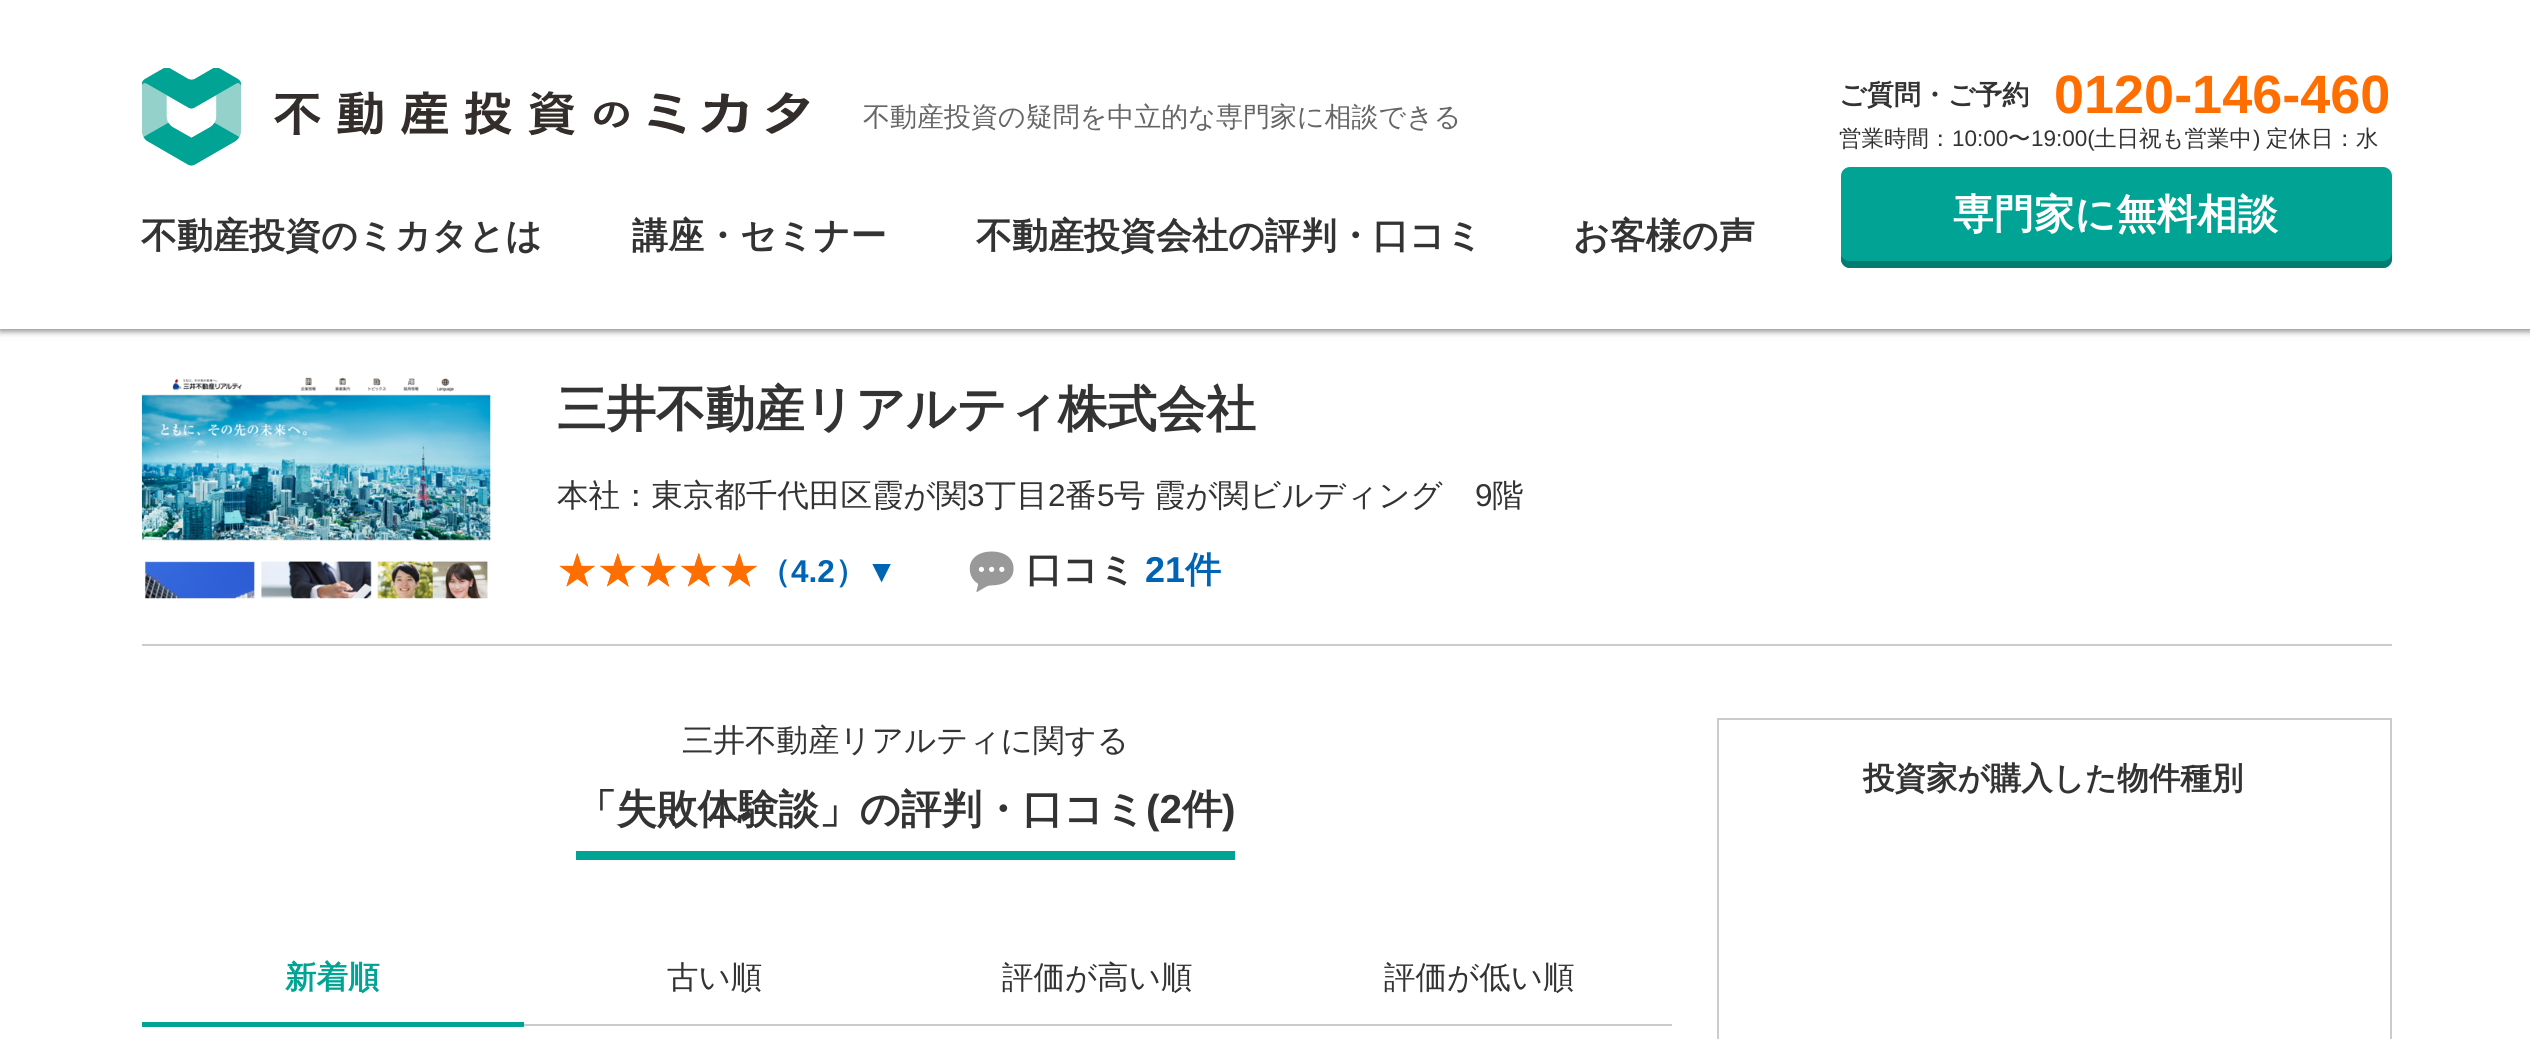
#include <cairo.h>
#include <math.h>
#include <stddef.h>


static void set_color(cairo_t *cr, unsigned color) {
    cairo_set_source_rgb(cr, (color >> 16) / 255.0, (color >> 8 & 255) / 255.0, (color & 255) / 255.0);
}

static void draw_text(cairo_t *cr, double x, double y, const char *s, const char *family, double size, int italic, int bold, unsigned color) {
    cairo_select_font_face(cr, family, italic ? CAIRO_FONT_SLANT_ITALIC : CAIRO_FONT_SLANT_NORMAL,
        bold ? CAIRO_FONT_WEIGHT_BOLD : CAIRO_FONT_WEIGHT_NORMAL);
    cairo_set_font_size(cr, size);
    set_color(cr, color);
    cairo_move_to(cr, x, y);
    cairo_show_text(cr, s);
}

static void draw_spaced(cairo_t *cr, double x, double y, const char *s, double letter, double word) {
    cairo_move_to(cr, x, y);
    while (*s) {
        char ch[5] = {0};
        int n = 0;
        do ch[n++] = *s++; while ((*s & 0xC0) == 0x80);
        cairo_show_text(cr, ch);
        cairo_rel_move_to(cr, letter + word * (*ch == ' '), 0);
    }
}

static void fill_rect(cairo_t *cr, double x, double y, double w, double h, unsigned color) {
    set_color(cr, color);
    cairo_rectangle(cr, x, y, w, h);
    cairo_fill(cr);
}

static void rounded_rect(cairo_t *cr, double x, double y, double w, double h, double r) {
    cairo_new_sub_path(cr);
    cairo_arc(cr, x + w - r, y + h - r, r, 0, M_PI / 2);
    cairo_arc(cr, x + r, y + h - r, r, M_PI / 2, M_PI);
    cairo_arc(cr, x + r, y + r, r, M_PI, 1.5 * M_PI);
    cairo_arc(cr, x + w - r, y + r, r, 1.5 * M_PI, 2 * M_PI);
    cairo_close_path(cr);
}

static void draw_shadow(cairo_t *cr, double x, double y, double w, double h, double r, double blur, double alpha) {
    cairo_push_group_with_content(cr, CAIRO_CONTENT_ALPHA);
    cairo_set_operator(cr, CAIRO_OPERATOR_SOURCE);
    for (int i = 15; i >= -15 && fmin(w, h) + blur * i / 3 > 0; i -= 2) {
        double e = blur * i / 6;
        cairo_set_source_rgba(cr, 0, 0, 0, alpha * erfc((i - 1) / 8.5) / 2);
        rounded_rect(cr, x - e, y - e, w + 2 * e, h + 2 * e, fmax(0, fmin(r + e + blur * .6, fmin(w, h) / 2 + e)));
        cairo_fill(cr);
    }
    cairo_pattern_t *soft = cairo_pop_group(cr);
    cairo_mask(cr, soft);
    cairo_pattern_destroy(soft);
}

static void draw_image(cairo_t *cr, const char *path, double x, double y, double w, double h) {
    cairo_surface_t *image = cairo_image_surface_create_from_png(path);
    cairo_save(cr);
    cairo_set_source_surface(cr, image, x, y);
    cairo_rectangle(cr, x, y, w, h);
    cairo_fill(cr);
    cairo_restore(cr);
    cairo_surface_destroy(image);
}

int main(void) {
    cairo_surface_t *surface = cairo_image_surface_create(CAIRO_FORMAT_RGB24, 2530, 1039);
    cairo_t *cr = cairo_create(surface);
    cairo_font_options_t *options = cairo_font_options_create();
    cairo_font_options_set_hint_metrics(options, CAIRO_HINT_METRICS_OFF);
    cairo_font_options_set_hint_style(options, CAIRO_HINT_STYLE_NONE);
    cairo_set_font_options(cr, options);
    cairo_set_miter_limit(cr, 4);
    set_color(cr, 0xFFFFFF);
    cairo_paint(cr);
    cairo_save(cr);
    cairo_set_fill_rule(cr, CAIRO_FILL_RULE_EVEN_ODD);
    cairo_new_path(cr);
    cairo_move_to(cr, 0, 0);
    cairo_line_to(cr, 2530, 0);
    cairo_line_to(cr, 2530, 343);
    cairo_line_to(cr, 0, 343);
    cairo_close_path(cr);
    cairo_move_to(cr, 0, 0);
    cairo_line_to(cr, 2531, 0);
    cairo_line_to(cr, 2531, 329);
    cairo_line_to(cr, 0, 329);
    cairo_close_path(cr);
    cairo_clip(cr);
    set_color(cr, 0x000000);
    draw_shadow(cr, 0, 2, 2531, 329, 0, 3.5, 0.5);
    cairo_restore(cr);
    cairo_set_source_rgba(cr, 1, 1, 1, 0.9);
    cairo_rectangle(cr, 0, 328, 2530, 1);
    cairo_fill(cr);
    draw_text(cr, 141, 248, "不動産投資のミカタとは", "WenQuanYi Zen Hei", 36, 0, 1, 0x333333);
    draw_text(cr, 632, 248, "講座・セミナー", "WenQuanYi Zen Hei", 36, 0, 1, 0x333333);
    draw_text(cr, 976, 248, "不動産投資会社の評判・口コミ", "WenQuanYi Zen Hei", 36, 0, 1, 0x333333);
    draw_text(cr, 1573, 248, "お客様の声", "WenQuanYi Zen Hei", 36, 0, 1, 0x333333);
    draw_text(cr, 1839, 104, "ご質問・ご予約", "WenQuanYi Zen Hei", 27, 0, 1, 0x333333);
    draw_text(cr, 2054, 113, "0120-146-460", "Liberation Sans", 54, 0, 1, 0xFF6E00);
    draw_text(cr, 1839, 146, "営業時間：", "WenQuanYi Zen Hei Medium", 22.5, 0, 0, 0x333333);
    draw_text(cr, 1952, 146, "10:00", "Liberation Sans", 22.5, 0, 0, 0x333333);
    draw_text(cr, 2008, 146, "〜", "WenQuanYi Zen Hei Medium", 22.5, 0, 0, 0x333333);
    draw_text(cr, 2031, 146, "19:00(", "Liberation Sans", 22.5, 0, 0, 0x333333);
    draw_text(cr, 2094, 146, "土日祝も営業中", "WenQuanYi Zen Hei Medium", 22.5, 0, 0, 0x333333);
    draw_text(cr, 2253, 146, ")", "Liberation Sans", 22.5, 0, 0, 0x333333);
    draw_text(cr, 2266, 146, "定休日：水", "WenQuanYi Zen Hei Medium", 22.5, 0, 0, 0x333333);
    set_color(cr, 0x00A394);
    rounded_rect(cr, 1841, 167, 551, 101, 9);
    cairo_fill(cr);
    set_color(cr, 0x007D72);
    cairo_new_path(cr);
    cairo_move_to(cr, 1841, 256);
    cairo_line_to(cr, 1841, 259);
    cairo_curve_to(cr, 1841, 264, 1845, 268, 1850, 268);
    cairo_line_to(cr, 2383, 268);
    cairo_curve_to(cr, 2388, 268, 2392, 264, 2392, 259);
    cairo_line_to(cr, 2392, 252);
    cairo_curve_to(cr, 2392, 257, 2388, 261, 2383, 261);
    cairo_line_to(cr, 1850, 261);
    cairo_curve_to(cr, 1846, 261, 1843, 259, 1841, 256);
    cairo_close_path(cr);
    cairo_fill(cr);
    draw_text(cr, 1953, 228, "専門家に無料相談", "WenQuanYi Zen Hei", 40.5, 0, 1, 0xFFFFFF);
    draw_image(cr, "assets/img1.png", 142, 68, 668, 98);
    draw_text(cr, 863, 126, "不動産投資の疑問を中立的な専門家に相談できる", "WenQuanYi Zen Hei Medium", 27, 0, 0, 0x666666);
    fill_rect(cr, 142, 644, 2250, 2, 0xCCCCCC);
    draw_image(cr, "assets/img2.png", 141, 377, 350, 222);
    draw_text(cr, 557, 426, "三井不動産リアルティ株式会社", "WenQuanYi Zen Hei", 49.5, 0, 1, 0x333333);
    draw_text(cr, 557, 506, "本社：東京都千代田区霞が関", "WenQuanYi Zen Hei Medium", 31.5, 0, 0, 0x333333);
    draw_text(cr, 967, 506, "3", "Liberation Sans", 31.5, 0, 0, 0x333333);
    draw_text(cr, 985, 506, "丁目", "WenQuanYi Zen Hei Medium", 31.5, 0, 0, 0x333333);
    draw_text(cr, 1048, 506, "2", "Liberation Sans", 31.5, 0, 0, 0x333333);
    draw_text(cr, 1065, 506, "番", "WenQuanYi Zen Hei Medium", 31.5, 0, 0, 0x333333);
    draw_text(cr, 1097, 506, "5", "Liberation Sans", 31.5, 0, 0, 0x333333);
    cairo_select_font_face(cr, "WenQuanYi Zen Hei Medium", CAIRO_FONT_SLANT_NORMAL, CAIRO_FONT_WEIGHT_NORMAL);
    draw_spaced(cr, 1114, 506, "号 霞が関ビルディング", 0, -1);
    draw_text(cr, 1475, 506, "9", "Liberation Sans", 31.5, 0, 0, 0x333333);
    draw_text(cr, 1492, 506, "階", "WenQuanYi Zen Hei Medium", 31.5, 0, 0, 0x333333);
    draw_text(cr, 557, 584, "☆☆☆☆☆", "WenQuanYi Zen Hei Medium", 40.5, 0, 0, 0xFF6E00);
    draw_text(cr, 557, 584, "★★★★★", "WenQuanYi Zen Hei Medium", 40.5, 0, 0, 0xFF6E00);
    draw_text(cr, 759, 582, "（", "WenQuanYi Zen Hei", 31.5, 0, 1, 0x0064B4);
    draw_text(cr, 791, 582, "4.2", "Liberation Sans", 31.5, 0, 1, 0x0064B4);
    draw_text(cr, 835, 582, "）", "WenQuanYi Zen Hei", 31.5, 0, 1, 0x0064B4);
    draw_text(cr, 866, 582, "▼", "Liberation Sans", 31.5, 0, 0, 0x0064B4);
    draw_image(cr, "assets/img3.png", 969, 551, 45, 41);
    draw_text(cr, 1026, 582, "口コミ", "WenQuanYi Zen Hei", 36, 0, 1, 0x333333);
    draw_text(cr, 1145, 582, "21", "Liberation Sans", 36, 0, 1, 0x0064B4);
    draw_text(cr, 1185, 582, "件", "WenQuanYi Zen Hei", 36, 0, 1, 0x0064B4);
    draw_text(cr, 682, 751, "三井不動産リアルティに関する", "WenQuanYi Zen Hei Medium", 31.5, 0, 0, 0x333333);
    fill_rect(cr, 576, 851, 659, 9, 0x00A394);
    draw_text(cr, 576, 823, "「失敗体験談」の評判・口コミ", "WenQuanYi Zen Hei", 40.5, 0, 1, 0x333333);
    draw_text(cr, 1146, 823, "(2", "Liberation Sans", 40.5, 0, 1, 0x333333);
    draw_text(cr, 1182, 823, "件", "WenQuanYi Zen Hei", 40.5, 0, 1, 0x333333);
    draw_text(cr, 1222, 823, ")", "Liberation Sans", 40.5, 0, 1, 0x333333);
    draw_text(cr, 285, 988, "新着順", "WenQuanYi Zen Hei", 31.5, 0, 1, 0x00A394);
    fill_rect(cr, 142, 1022, 382, 5, 0x00A394);
    fill_rect(cr, 524, 1024, 1148, 2, 0xCCCCCC);
    draw_text(cr, 667, 988, "古い順", "WenQuanYi Zen Hei Medium", 31.5, 0, 0, 0x333333);
    draw_text(cr, 1002, 988, "評価が高い順", "WenQuanYi Zen Hei Medium", 31.5, 0, 0, 0x333333);
    draw_text(cr, 1384, 988, "評価が低い順", "WenQuanYi Zen Hei Medium", 31.5, 0, 0, 0x333333);
    cairo_rectangle(cr, 1718, 719, 673, 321);
    set_color(cr, 0xCCCCCC);
    cairo_stroke(cr);
    draw_text(cr, 1863, 789, "投資家が購入した物件種別", "WenQuanYi Zen Hei", 31.5, 0, 1, 0x333333);
    cairo_surface_write_to_png(surface, "output.png");
    cairo_font_options_destroy(options);
    cairo_destroy(cr);
    cairo_surface_destroy(surface);
    return 0;
}
